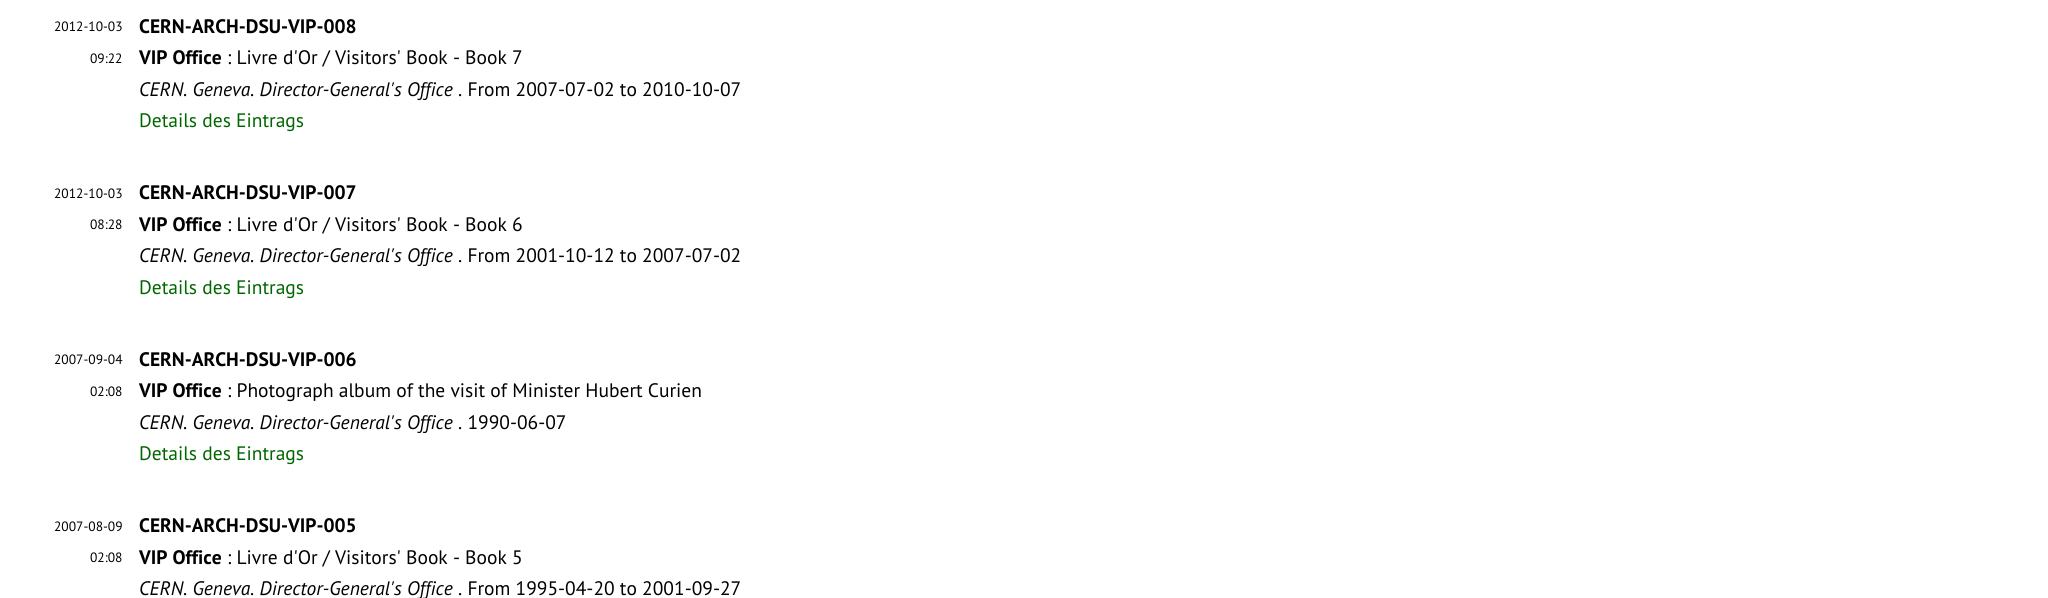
#include <cairo.h>
#include <math.h>
#include <stddef.h>


static void set_color(cairo_t *cr, unsigned color) {
    cairo_set_source_rgb(cr, (color >> 16) / 255.0, (color >> 8 & 255) / 255.0, (color & 255) / 255.0);
}

static void draw_text(cairo_t *cr, double x, double y, const char *s, const char *family, double size, int italic, int bold, unsigned color) {
    cairo_select_font_face(cr, family, italic ? CAIRO_FONT_SLANT_ITALIC : CAIRO_FONT_SLANT_NORMAL,
        bold ? CAIRO_FONT_WEIGHT_BOLD : CAIRO_FONT_WEIGHT_NORMAL);
    cairo_set_font_size(cr, size);
    set_color(cr, color);
    cairo_move_to(cr, x, y);
    cairo_show_text(cr, s);
}

int main(void) {
    cairo_surface_t *surface = cairo_image_surface_create(CAIRO_FORMAT_RGB24, 2048, 598);
    cairo_t *cr = cairo_create(surface);
    cairo_font_options_t *options = cairo_font_options_create();
    cairo_font_options_set_hint_metrics(options, CAIRO_HINT_METRICS_OFF);
    cairo_font_options_set_hint_style(options, CAIRO_HINT_STYLE_NONE);
    cairo_set_font_options(cr, options);
    cairo_set_miter_limit(cr, 4);
    set_color(cr, 0xFFFFFF);
    cairo_paint(cr);
    draw_text(cr, 54, 31, "2012-10-03", "PT Sans", 13.5, 0, 0, 0x000000);
    draw_text(cr, 90, 63, "09:22", "PT Sans", 13.5, 0, 0, 0x000000);
    draw_text(cr, 139, 33, "CERN-ARCH-DSU-VIP-008", "PT Sans", 19.5, 0, 1, 0x000000);
    draw_text(cr, 139, 64, "VIP Office", "PT Sans", 19.5, 0, 1, 0x000000);
    draw_text(cr, 227, 64, ": Livre d'Or / Visitors' Book - Book 7", "PT Sans", 19.5, 0, 0, 0x000000);
    draw_text(cr, 139, 96, "CERN. Geneva. Director-General's Office", "PT Sans", 19.5, 1, 0, 0x000000);
    draw_text(cr, 458, 96, ". From 2007-07-02 to 2010-10-07", "PT Sans", 19.5, 0, 0, 0x000000);
    draw_text(cr, 139, 127, "Details des Eintrags", "PT Sans", 19.5, 0, 0, 0x006600);
    draw_text(cr, 54, 198, "2012-10-03", "PT Sans", 13.5, 0, 0, 0x000000);
    draw_text(cr, 90, 229, "08:28", "PT Sans", 13.5, 0, 0, 0x000000);
    draw_text(cr, 139, 199, "CERN-ARCH-DSU-VIP-007", "PT Sans", 19.5, 0, 1, 0x000000);
    draw_text(cr, 139, 231, "VIP Office", "PT Sans", 19.5, 0, 1, 0x000000);
    draw_text(cr, 227, 231, ": Livre d'Or / Visitors' Book - Book 6", "PT Sans", 19.5, 0, 0, 0x000000);
    draw_text(cr, 139, 262, "CERN. Geneva. Director-General's Office", "PT Sans", 19.5, 1, 0, 0x000000);
    draw_text(cr, 458, 262, ". From 2001-10-12 to 2007-07-02", "PT Sans", 19.5, 0, 0, 0x000000);
    draw_text(cr, 139, 294, "Details des Eintrags", "PT Sans", 19.5, 0, 0, 0x006600);
    draw_text(cr, 54, 364, "2007-09-04", "PT Sans", 13.5, 0, 0, 0x000000);
    draw_text(cr, 90, 396, "02:08", "PT Sans", 13.5, 0, 0, 0x000000);
    draw_text(cr, 139, 366, "CERN-ARCH-DSU-VIP-006", "PT Sans", 19.5, 0, 1, 0x000000);
    draw_text(cr, 139, 397, "VIP Office", "PT Sans", 19.5, 0, 1, 0x000000);
    draw_text(cr, 227, 397, ": Photograph album of the visit of Minister Hubert Curien", "PT Sans", 19.5, 0, 0, 0x000000);
    draw_text(cr, 139, 429, "CERN. Geneva. Director-General's Office", "PT Sans", 19.5, 1, 0, 0x000000);
    draw_text(cr, 458, 429, ". 1990-06-07", "PT Sans", 19.5, 0, 0, 0x000000);
    draw_text(cr, 139, 460, "Details des Eintrags", "PT Sans", 19.5, 0, 0, 0x006600);
    draw_text(cr, 54, 531, "2007-08-09", "PT Sans", 13.5, 0, 0, 0x000000);
    draw_text(cr, 90, 562, "02:08", "PT Sans", 13.5, 0, 0, 0x000000);
    draw_text(cr, 139, 532, "CERN-ARCH-DSU-VIP-005", "PT Sans", 19.5, 0, 1, 0x000000);
    draw_text(cr, 139, 564, "VIP Office", "PT Sans", 19.5, 0, 1, 0x000000);
    draw_text(cr, 227, 564, ": Livre d'Or / Visitors' Book - Book 5", "PT Sans", 19.5, 0, 0, 0x000000);
    draw_text(cr, 139, 595, "CERN. Geneva. Director-General's Office", "PT Sans", 19.5, 1, 0, 0x000000);
    draw_text(cr, 458, 595, ". From 1995-04-20 to 2001-09-27", "PT Sans", 19.5, 0, 0, 0x000000);
    cairo_surface_write_to_png(surface, "output.png");
    cairo_font_options_destroy(options);
    cairo_destroy(cr);
    cairo_surface_destroy(surface);
    return 0;
}
